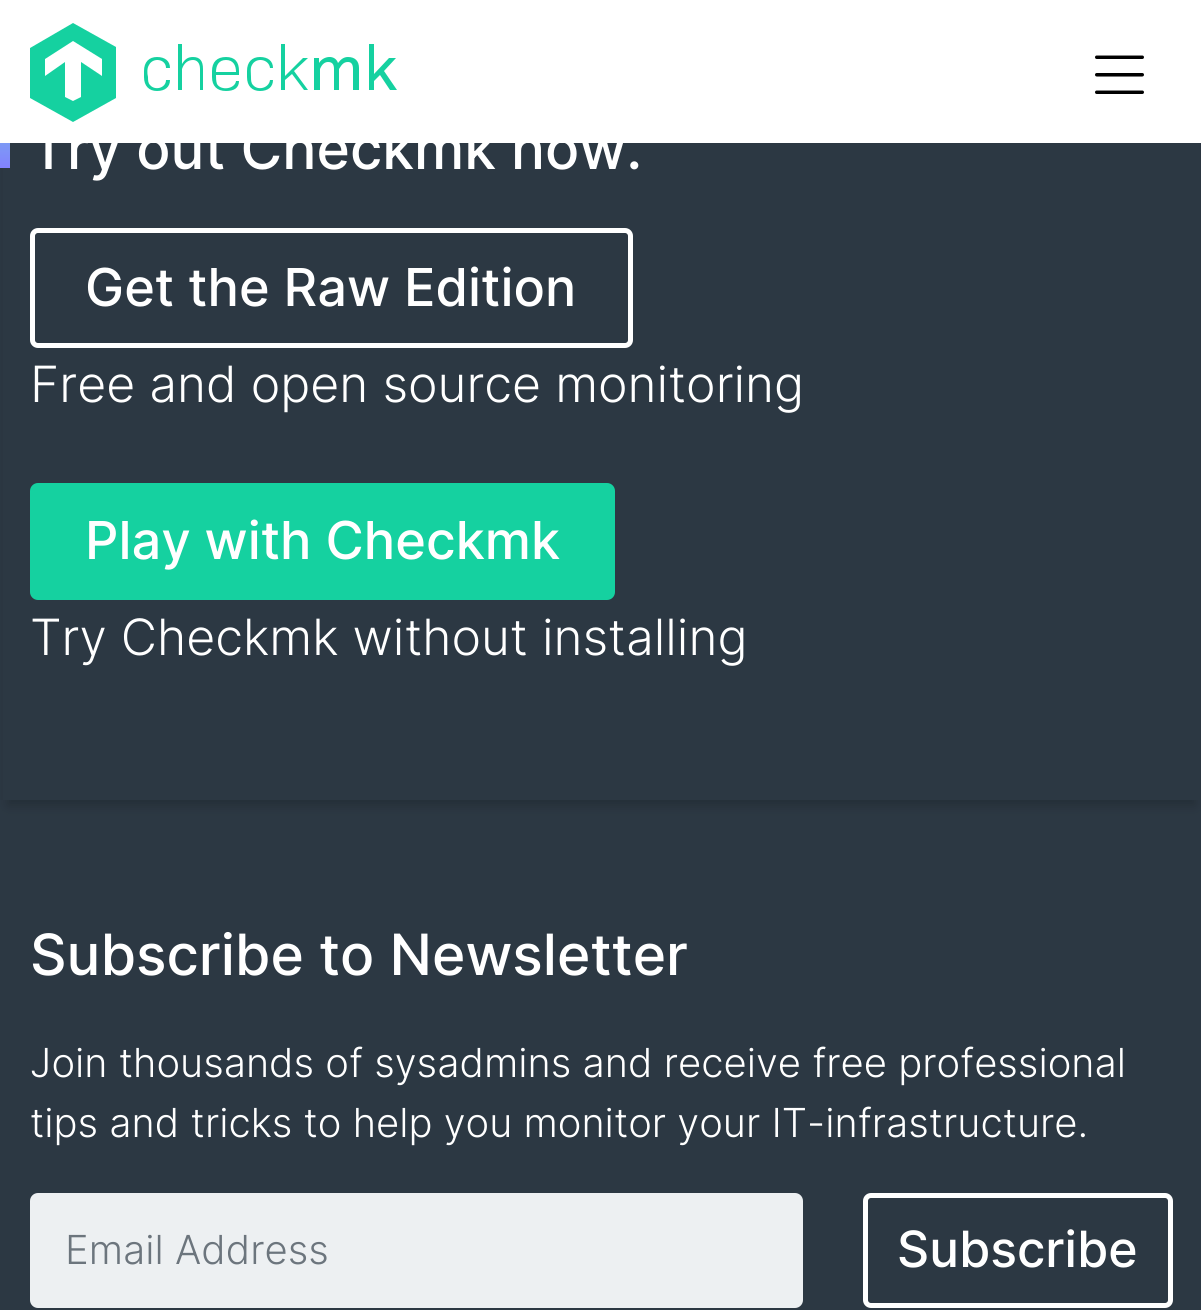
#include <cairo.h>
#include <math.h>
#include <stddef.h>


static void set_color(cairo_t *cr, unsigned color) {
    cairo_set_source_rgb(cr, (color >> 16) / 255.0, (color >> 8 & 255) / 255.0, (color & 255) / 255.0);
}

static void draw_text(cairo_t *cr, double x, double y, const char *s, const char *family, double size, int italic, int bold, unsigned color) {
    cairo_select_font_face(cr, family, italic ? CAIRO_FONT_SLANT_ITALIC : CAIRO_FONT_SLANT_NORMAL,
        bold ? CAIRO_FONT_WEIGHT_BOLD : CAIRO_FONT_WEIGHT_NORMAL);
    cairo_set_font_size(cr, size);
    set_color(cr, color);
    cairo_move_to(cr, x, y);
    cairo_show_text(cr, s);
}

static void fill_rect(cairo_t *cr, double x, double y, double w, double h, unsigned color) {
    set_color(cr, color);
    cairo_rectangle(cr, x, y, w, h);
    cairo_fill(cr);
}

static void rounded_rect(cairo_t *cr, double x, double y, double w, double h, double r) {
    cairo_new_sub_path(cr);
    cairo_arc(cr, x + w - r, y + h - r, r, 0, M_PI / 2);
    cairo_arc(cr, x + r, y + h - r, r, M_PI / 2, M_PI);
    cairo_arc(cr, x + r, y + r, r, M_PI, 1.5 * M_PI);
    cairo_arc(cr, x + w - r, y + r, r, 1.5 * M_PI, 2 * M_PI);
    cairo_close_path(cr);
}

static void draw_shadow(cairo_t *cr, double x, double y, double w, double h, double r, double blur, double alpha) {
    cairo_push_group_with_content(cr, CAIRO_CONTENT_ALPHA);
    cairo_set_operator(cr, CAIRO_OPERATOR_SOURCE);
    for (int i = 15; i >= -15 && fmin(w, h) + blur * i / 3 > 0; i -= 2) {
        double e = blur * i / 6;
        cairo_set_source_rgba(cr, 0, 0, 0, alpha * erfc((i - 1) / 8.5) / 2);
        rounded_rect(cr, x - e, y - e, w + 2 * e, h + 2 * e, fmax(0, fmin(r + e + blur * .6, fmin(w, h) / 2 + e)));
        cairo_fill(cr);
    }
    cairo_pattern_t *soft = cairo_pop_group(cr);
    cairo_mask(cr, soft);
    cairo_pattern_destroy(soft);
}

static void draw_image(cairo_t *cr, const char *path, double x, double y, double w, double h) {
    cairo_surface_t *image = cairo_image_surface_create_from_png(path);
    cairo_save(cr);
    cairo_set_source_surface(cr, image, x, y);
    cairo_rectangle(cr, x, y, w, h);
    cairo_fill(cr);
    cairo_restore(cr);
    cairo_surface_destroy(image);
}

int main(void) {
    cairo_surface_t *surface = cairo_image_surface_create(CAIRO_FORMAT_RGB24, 1201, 1310);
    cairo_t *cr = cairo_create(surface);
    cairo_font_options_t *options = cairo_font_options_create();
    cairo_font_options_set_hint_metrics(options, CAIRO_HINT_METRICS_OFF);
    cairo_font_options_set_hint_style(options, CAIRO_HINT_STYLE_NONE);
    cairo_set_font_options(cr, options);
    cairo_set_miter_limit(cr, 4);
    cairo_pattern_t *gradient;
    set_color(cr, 0x2C3843);
    cairo_paint(cr);
    set_color(cr, 0x000000);
    draw_shadow(cr, 8, -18, 1187, 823, 0, 6, 0.2);
    fill_rect(cr, 0, 0, 1201, 143, 0xFFFFFF);
    set_color(cr, 0x15D1A0);
    cairo_set_fill_rule(cr, CAIRO_FILL_RULE_EVEN_ODD);
    cairo_new_path(cr);
    cairo_move_to(cr, 73, 23);
    cairo_line_to(cr, 30, 48);
    cairo_line_to(cr, 30, 98);
    cairo_line_to(cr, 73, 122);
    cairo_line_to(cr, 116, 98);
    cairo_line_to(cr, 116, 47);
    cairo_close_path(cr);
    cairo_move_to(cr, 45, 59);
    cairo_line_to(cr, 73, 41);
    cairo_line_to(cr, 102, 59);
    cairo_line_to(cr, 102, 76);
    cairo_line_to(cr, 81, 62);
    cairo_line_to(cr, 81, 97);
    cairo_line_to(cr, 73, 101);
    cairo_line_to(cr, 65, 97);
    cairo_line_to(cr, 65, 62);
    cairo_line_to(cr, 45, 76);
    cairo_close_path(cr);
    cairo_fill(cr);
    cairo_new_path(cr);
    cairo_move_to(cr, 178, 90);
    cairo_line_to(cr, 178, 90);
    cairo_close_path(cr);
    cairo_move_to(cr, 178, 90);
    cairo_line_to(cr, 182, 90);
    cairo_line_to(cr, 182, 69);
    cairo_curve_to(cr, 184, 63, 188, 60, 193, 60);
    cairo_curve_to(cr, 197, 60, 200, 63, 200, 69);
    cairo_line_to(cr, 200, 90);
    cairo_line_to(cr, 203, 90);
    cairo_line_to(cr, 203, 69);
    cairo_curve_to(cr, 203, 61, 200, 57, 193, 57);
    cairo_curve_to(cr, 188, 57, 185, 59, 182, 64);
    cairo_line_to(cr, 182, 44);
    cairo_line_to(cr, 178, 44);
    cairo_close_path(cr);
    cairo_move_to(cr, 281, 44);
    cairo_line_to(cr, 281, 90);
    cairo_line_to(cr, 285, 90);
    cairo_line_to(cr, 285, 80);
    cairo_line_to(cr, 292, 74);
    cairo_line_to(cr, 304, 90);
    cairo_line_to(cr, 308, 90);
    cairo_line_to(cr, 294, 71);
    cairo_line_to(cr, 308, 58);
    cairo_line_to(cr, 303, 58);
    cairo_line_to(cr, 285, 76);
    cairo_line_to(cr, 285, 44);
    cairo_close_path(cr);
    cairo_move_to(cr, 369, 44);
    cairo_line_to(cr, 369, 90);
    cairo_line_to(cr, 374, 90);
    cairo_line_to(cr, 374, 81);
    cairo_line_to(cr, 380, 75);
    cairo_line_to(cr, 390, 90);
    cairo_line_to(cr, 397, 90);
    cairo_line_to(cr, 384, 71);
    cairo_line_to(cr, 396, 58);
    cairo_line_to(cr, 389, 58);
    cairo_line_to(cr, 374, 74);
    cairo_line_to(cr, 374, 44);
    cairo_close_path(cr);
    cairo_move_to(cr, 314, 90);
    cairo_line_to(cr, 320, 90);
    cairo_line_to(cr, 320, 69);
    cairo_curve_to(cr, 322, 64, 325, 62, 328, 62);
    cairo_curve_to(cr, 332, 62, 334, 64, 334, 69);
    cairo_line_to(cr, 334, 90);
    cairo_line_to(cr, 339, 90);
    cairo_line_to(cr, 339, 69);
    cairo_curve_to(cr, 342, 64, 344, 62, 348, 62);
    cairo_curve_to(cr, 351, 62, 353, 64, 353, 69);
    cairo_line_to(cr, 353, 90);
    cairo_line_to(cr, 359, 90);
    cairo_line_to(cr, 359, 68);
    cairo_curve_to(cr, 359, 61, 355, 57, 348, 57);
    cairo_curve_to(cr, 344, 57, 341, 59, 338, 63);
    cairo_curve_to(cr, 335, 54, 323, 56, 319, 63);
    cairo_line_to(cr, 319, 58);
    cairo_line_to(cr, 314, 58);
    cairo_close_path(cr);
    cairo_move_to(cr, 157, 91);
    cairo_curve_to(cr, 165, 91, 170, 87, 170, 80);
    cairo_line_to(cr, 166, 80);
    cairo_curve_to(cr, 166, 88, 155, 91, 150, 85);
    cairo_curve_to(cr, 148, 83, 148, 80, 148, 77);
    cairo_curve_to(cr, 147, 73, 147, 68, 149, 65);
    cairo_curve_to(cr, 153, 57, 166, 59, 166, 68);
    cairo_line_to(cr, 170, 68);
    cairo_curve_to(cr, 170, 61, 165, 57, 157, 57);
    cairo_curve_to(cr, 149, 57, 144, 62, 144, 71);
    cairo_line_to(cr, 144, 77);
    cairo_curve_to(cr, 144, 86, 149, 91, 157, 91);
    cairo_close_path(cr);
    cairo_move_to(cr, 226, 91);
    cairo_curve_to(cr, 234, 91, 239, 88, 239, 81);
    cairo_line_to(cr, 236, 81);
    cairo_curve_to(cr, 235, 89, 221, 91, 217, 84);
    cairo_curve_to(cr, 216, 81, 216, 78, 216, 75);
    cairo_line_to(cr, 239, 75);
    cairo_line_to(cr, 239, 71);
    cairo_curve_to(cr, 239, 62, 235, 57, 226, 57);
    cairo_curve_to(cr, 217, 57, 212, 62, 212, 71);
    cairo_line_to(cr, 212, 77);
    cairo_curve_to(cr, 212, 86, 217, 91, 226, 91);
    cairo_close_path(cr);
    cairo_move_to(cr, 260, 91);
    cairo_curve_to(cr, 268, 91, 273, 87, 273, 80);
    cairo_line_to(cr, 270, 80);
    cairo_curve_to(cr, 269, 88, 258, 91, 253, 85);
    cairo_curve_to(cr, 251, 83, 251, 80, 251, 77);
    cairo_curve_to(cr, 251, 73, 250, 68, 252, 65);
    cairo_curve_to(cr, 256, 57, 269, 59, 270, 68);
    cairo_line_to(cr, 273, 68);
    cairo_curve_to(cr, 273, 61, 268, 57, 260, 57);
    cairo_curve_to(cr, 252, 57, 247, 62, 247, 71);
    cairo_line_to(cr, 247, 77);
    cairo_curve_to(cr, 247, 86, 252, 91, 260, 91);
    cairo_close_path(cr);
    cairo_move_to(cr, 216, 72);
    cairo_curve_to(cr, 216, 65, 219, 60, 226, 60);
    cairo_curve_to(cr, 233, 60, 236, 65, 236, 72);
    cairo_close_path(cr);
    cairo_fill(cr);
    draw_image(cr, "assets/img1.png", 1095, 55, 49, 39);
    fill_rect(cr, 3, 143, 1197, 657, 0x2C3843);
    gradient = cairo_pattern_create_linear(5, 38, 5, 168);
    cairo_pattern_add_color_stop_rgba(gradient, 0, 0.404, 0.992, 0.804, 1);
    cairo_pattern_add_color_stop_rgba(gradient, 1, 0.51, 0.51, 0.996, 1);
    cairo_set_source(cr, gradient);
    cairo_pattern_destroy(gradient);
    cairo_rectangle(cr, 0, 143, 10, 25);
    cairo_fill(cr);
    draw_text(cr, 30, 169, "Try out Checkmk now.", "Inter Medium", 56.9, 0, 0, 0xFFFFFF);
    rounded_rect(cr, 32.5, 230.5, 598, 115, 5.5);
    cairo_set_line_width(cr, 5);
    cairo_stroke(cr);
    draw_text(cr, 85, 306, "Get the Raw Edition", "Inter Medium", 52.25, 0, 0, 0xFFFFFF);
    draw_text(cr, 30, 402, "Free and open source monitoring", "Inter Light", 50, 0, 0, 0xFFFFFF);
    set_color(cr, 0x15D1A0);
    rounded_rect(cr, 32.5, 485.5, 580, 112, 5.5);
    cairo_fill_preserve(cr);
    cairo_stroke(cr);
    draw_text(cr, 85, 559, "Play with Checkmk", "Inter Medium", 52.25, 0, 0, 0xFFFFFF);
    draw_text(cr, 30, 655, "Try Checkmk without installing", "Inter Light", 50, 0, 0, 0xFFFFFF);
    draw_text(cr, 30, 975, "Subscribe to Newsletter", "Inter Medium", 56.9, 0, 0, 0xFFFFFF);
    draw_text(cr, 30, 1077, "Join thousands of sysadmins and receive free professional", "Inter Light", 40, 0, 0, 0xFFFFFF);
    draw_text(cr, 30, 1137, "tips and tricks to help you monitor your IT-infrastructure.", "Inter Light", 40, 0, 0, 0xFFFFFF);
    set_color(cr, 0xEDF0F2);
    rounded_rect(cr, 32.5, 1195.5, 768, 110, 5.5);
    cairo_fill_preserve(cr);
    cairo_stroke(cr);
    draw_text(cr, 65, 1264, "Email Address", "Inter Light", 40, 0, 0, 0x6C757D);
    rounded_rect(cr, 865.5, 1195.5, 305, 110, 5.5);
    set_color(cr, 0xFFFFFF);
    cairo_stroke(cr);
    draw_text(cr, 897, 1267, "Subscribe", "Inter Medium", 50, 0, 0, 0xFFFFFF);
    cairo_surface_write_to_png(surface, "output.png");
    cairo_font_options_destroy(options);
    cairo_destroy(cr);
    cairo_surface_destroy(surface);
    return 0;
}
